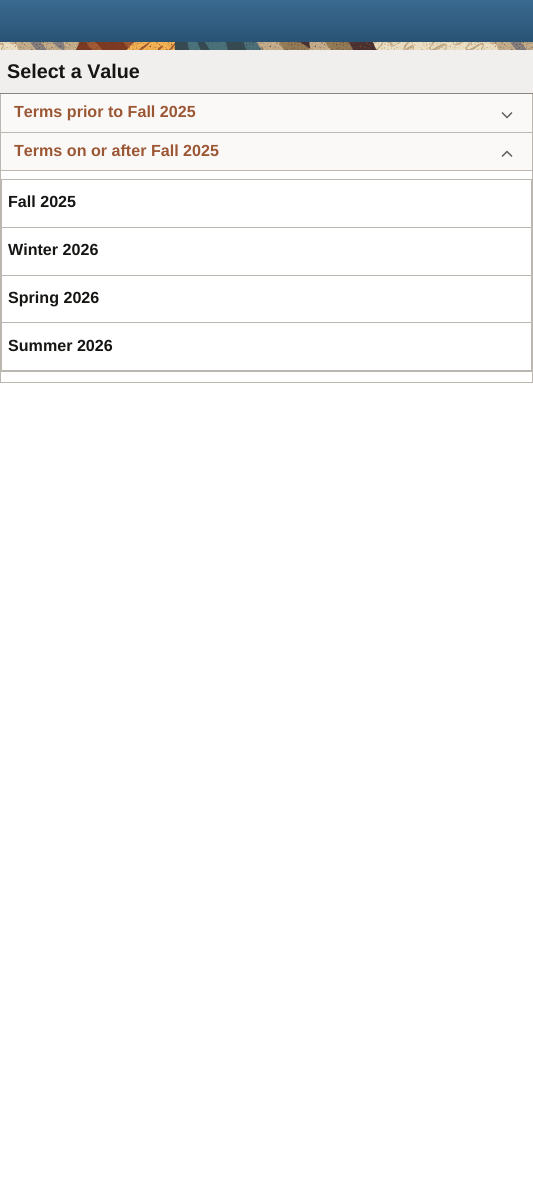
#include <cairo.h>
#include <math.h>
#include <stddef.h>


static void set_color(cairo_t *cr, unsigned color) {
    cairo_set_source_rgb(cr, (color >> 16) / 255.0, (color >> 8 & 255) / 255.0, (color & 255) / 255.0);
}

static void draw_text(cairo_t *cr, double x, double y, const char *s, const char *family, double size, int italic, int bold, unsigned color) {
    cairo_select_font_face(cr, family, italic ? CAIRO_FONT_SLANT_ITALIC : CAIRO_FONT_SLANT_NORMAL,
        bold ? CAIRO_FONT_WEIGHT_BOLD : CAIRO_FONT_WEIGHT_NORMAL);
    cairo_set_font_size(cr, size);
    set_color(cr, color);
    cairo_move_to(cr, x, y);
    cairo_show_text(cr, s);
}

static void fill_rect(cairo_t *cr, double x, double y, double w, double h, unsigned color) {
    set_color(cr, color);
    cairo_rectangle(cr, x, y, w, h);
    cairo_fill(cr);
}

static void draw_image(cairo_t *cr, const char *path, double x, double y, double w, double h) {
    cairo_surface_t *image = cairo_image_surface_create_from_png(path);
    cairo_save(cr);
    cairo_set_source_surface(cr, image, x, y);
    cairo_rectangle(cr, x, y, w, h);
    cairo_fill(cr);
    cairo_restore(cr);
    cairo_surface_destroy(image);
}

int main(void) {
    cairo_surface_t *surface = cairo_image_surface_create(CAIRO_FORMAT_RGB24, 533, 1198);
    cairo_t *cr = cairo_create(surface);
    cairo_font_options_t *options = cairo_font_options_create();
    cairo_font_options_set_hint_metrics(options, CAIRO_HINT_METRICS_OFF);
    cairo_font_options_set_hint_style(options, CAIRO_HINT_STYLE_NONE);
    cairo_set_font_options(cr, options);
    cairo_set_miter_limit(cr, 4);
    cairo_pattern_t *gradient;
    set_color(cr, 0xFFFFFF);
    cairo_paint(cr);
    gradient = cairo_pattern_create_linear(267, 0, 267, 94);
    cairo_pattern_add_color_stop_rgba(gradient, 0, 0.224, 0.416, 0.565, 1);
    cairo_pattern_add_color_stop_rgba(gradient, 1, 0.09, 0.212, 0.318, 1);
    cairo_set_source(cr, gradient);
    cairo_pattern_destroy(gradient);
    cairo_rectangle(cr, 0, 0, 533, 42);
    cairo_fill(cr);
    fill_rect(cr, 0, 50, 533, 43, 0xF1EFED);
    fill_rect(cr, 0, 93, 533, 1, 0x8B8580);
    draw_image(cr, "assets/img1.png", 0, 42, 533, 8);
    draw_text(cr, 7, 78, "Select a Value", "Liberation Sans", 19.75, 0, 1, 0x161513);
    fill_rect(cr, 532, 94, 1, 289, 0xBCB6B1);
    fill_rect(cr, 0, 94, 1, 39, 0xBCB6B1);
    fill_rect(cr, 1, 132, 531, 1, 0xBCB6B1);
    fill_rect(cr, 1, 94, 531, 38, 0xFBF9F8);
    draw_text(cr, 14, 117, "Terms prior to Fall 2025", "Liberation Sans", 16.1, 0, 1, 0x9B5734);
    draw_image(cr, "assets/img2.png", 501, 112, 12, 7);
    fill_rect(cr, 0, 382, 533, 1, 0xBCB6B1);
    fill_rect(cr, 0, 133, 1, 250, 0xBCB6B1);
    fill_rect(cr, 1, 170, 531, 1, 0xBCB6B1);
    fill_rect(cr, 1, 133, 531, 37, 0xFBF9F8);
    draw_text(cr, 14, 156, "Terms on or after Fall 2025", "Liberation Sans", 16.1, 0, 1, 0x9B5734);
    draw_image(cr, "assets/img3.png", 501, 150, 12, 7);
    cairo_rectangle(cr, 1.5, 179.5, 530, 192);
    set_color(cr, 0xBCB6B1);
    cairo_set_line_width(cr, 1);
    cairo_stroke(cr);
    fill_rect(cr, 2, 227, 529, 1, 0xBCB6B1);
    draw_text(cr, 8, 207, "Fall 2025", "Liberation Sans", 16.1, 0, 1, 0x161513);
    fill_rect(cr, 2, 275, 529, 1, 0xBCB6B1);
    draw_text(cr, 8, 255, "Winter 2026", "Liberation Sans", 16.1, 0, 1, 0x161513);
    fill_rect(cr, 2, 322, 529, 1, 0xBCB6B1);
    draw_text(cr, 8, 303, "Spring 2026", "Liberation Sans", 16.1, 0, 1, 0x161513);
    fill_rect(cr, 2, 370, 529, 1, 0xBCB6B1);
    draw_text(cr, 8, 351, "Summer 2026", "Liberation Sans", 16.1, 0, 1, 0x161513);
    cairo_surface_write_to_png(surface, "output.png");
    cairo_font_options_destroy(options);
    cairo_destroy(cr);
    cairo_surface_destroy(surface);
    return 0;
}
